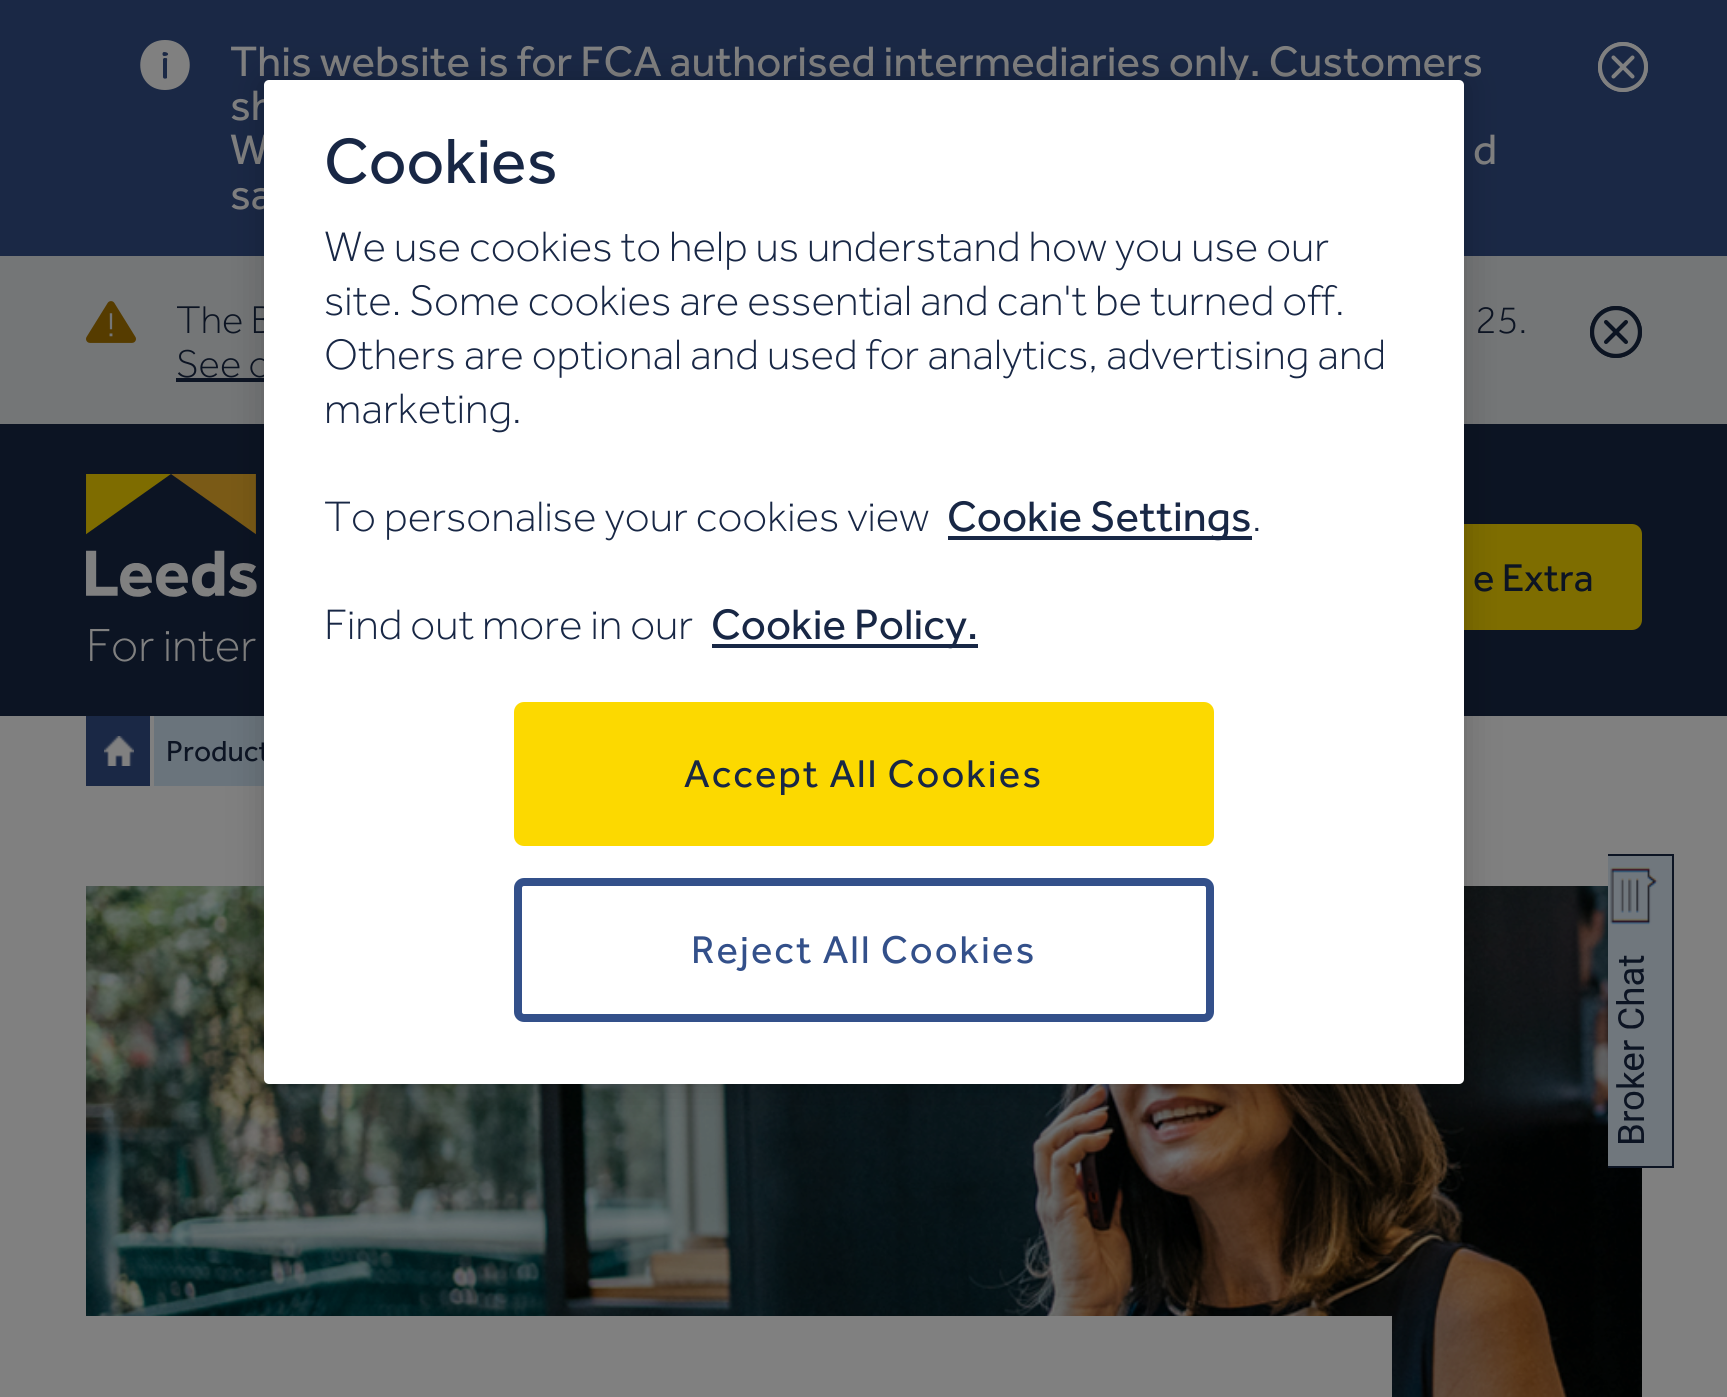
#include <cairo.h>
#include <math.h>
#include <stddef.h>


static void set_color(cairo_t *cr, unsigned color) {
    cairo_set_source_rgb(cr, (color >> 16) / 255.0, (color >> 8 & 255) / 255.0, (color & 255) / 255.0);
}

static void draw_text(cairo_t *cr, double x, double y, const char *s, const char *family, double size, int italic, int bold, unsigned color) {
    cairo_select_font_face(cr, family, italic ? CAIRO_FONT_SLANT_ITALIC : CAIRO_FONT_SLANT_NORMAL,
        bold ? CAIRO_FONT_WEIGHT_BOLD : CAIRO_FONT_WEIGHT_NORMAL);
    cairo_set_font_size(cr, size);
    set_color(cr, color);
    cairo_move_to(cr, x, y);
    cairo_show_text(cr, s);
}

static void draw_spaced(cairo_t *cr, double x, double y, const char *s, double letter, double word) {
    cairo_move_to(cr, x, y);
    while (*s) {
        char ch[5] = {0};
        int n = 0;
        do ch[n++] = *s++; while ((*s & 0xC0) == 0x80);
        cairo_show_text(cr, ch);
        cairo_rel_move_to(cr, letter + word * (*ch == ' '), 0);
    }
}

static void fill_rect(cairo_t *cr, double x, double y, double w, double h, unsigned color) {
    set_color(cr, color);
    cairo_rectangle(cr, x, y, w, h);
    cairo_fill(cr);
}

static void rounded_rect(cairo_t *cr, double x, double y, double w, double h, double r) {
    cairo_new_sub_path(cr);
    cairo_arc(cr, x + w - r, y + h - r, r, 0, M_PI / 2);
    cairo_arc(cr, x + r, y + h - r, r, M_PI / 2, M_PI);
    cairo_arc(cr, x + r, y + r, r, M_PI, 1.5 * M_PI);
    cairo_arc(cr, x + w - r, y + r, r, 1.5 * M_PI, 2 * M_PI);
    cairo_close_path(cr);
}

static void draw_shadow(cairo_t *cr, double x, double y, double w, double h, double r, double blur, double alpha) {
    cairo_push_group_with_content(cr, CAIRO_CONTENT_ALPHA);
    cairo_set_operator(cr, CAIRO_OPERATOR_SOURCE);
    for (int i = 15; i >= -15 && fmin(w, h) + blur * i / 3 > 0; i -= 2) {
        double e = blur * i / 6;
        cairo_set_source_rgba(cr, 0, 0, 0, alpha * erfc((i - 1) / 8.5) / 2);
        rounded_rect(cr, x - e, y - e, w + 2 * e, h + 2 * e, fmax(0, fmin(r + e + blur * .6, fmin(w, h) / 2 + e)));
        cairo_fill(cr);
    }
    cairo_pattern_t *soft = cairo_pop_group(cr);
    cairo_mask(cr, soft);
    cairo_pattern_destroy(soft);
}

static void draw_image(cairo_t *cr, const char *path, double x, double y, double w, double h) {
    cairo_surface_t *image = cairo_image_surface_create_from_png(path);
    cairo_save(cr);
    cairo_set_source_surface(cr, image, x, y);
    cairo_rectangle(cr, x, y, w, h);
    cairo_fill(cr);
    cairo_restore(cr);
    cairo_surface_destroy(image);
}

int main(void) {
    cairo_surface_t *surface = cairo_image_surface_create(CAIRO_FORMAT_RGB24, 1727, 1397);
    cairo_t *cr = cairo_create(surface);
    cairo_font_options_t *options = cairo_font_options_create();
    cairo_font_options_set_hint_metrics(options, CAIRO_HINT_METRICS_OFF);
    cairo_font_options_set_hint_style(options, CAIRO_HINT_STYLE_NONE);
    cairo_set_font_options(cr, options);
    cairo_set_miter_limit(cr, 4);
    set_color(cr, 0x808080);
    cairo_paint(cr);
    fill_rect(cr, 0, 0, 1727, 256, 0x1A2845);
    set_color(cr, 0x808080);
    cairo_set_fill_rule(cr, CAIRO_FILL_RULE_EVEN_ODD);
    cairo_new_path(cr);
    cairo_move_to(cr, 165, 90);
    cairo_curve_to(cr, 198, 90, 198, 40, 165, 40);
    cairo_curve_to(cr, 132, 40, 132, 90, 165, 90);
    cairo_close_path(cr);
    cairo_move_to(cr, 163, 77);
    cairo_curve_to(cr, 163, 79, 166, 79, 167, 78);
    cairo_line_to(cr, 167, 62);
    cairo_curve_to(cr, 167, 58, 168, 58, 164, 58);
    cairo_line_to(cr, 163, 59);
    cairo_close_path(cr);
    cairo_move_to(cr, 164, 56);
    cairo_curve_to(cr, 162, 56, 162, 52, 164, 52);
    cairo_curve_to(cr, 169, 52, 170, 56, 164, 56);
    cairo_close_path(cr);
    cairo_fill(cr);
    draw_text(cr, 230, 76, "This website is for FCA authorised intermediaries only. Customers", "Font", 44, 0, 0, 0x808080);
    draw_text(cr, 230, 120, "sh", "Font", 44, 0, 0, 0x808080);
    draw_text(cr, 230, 164, "W", "Font", 44, 0, 0, 0x808080);
    draw_text(cr, 1473, 164, "d", "Font", 44, 0, 0, 0x808080);
    draw_text(cr, 230, 209, "sa", "Font", 44, 0, 0, 0x808080);
    draw_image(cr, "assets/img1.png", 1598, 42, 50, 50);
    fill_rect(cr, 0, 256, 1727, 168, 0x747677);
    draw_image(cr, "assets/img2.png", 86, 301, 50, 42);
    draw_text(cr, 176, 333, "The B", "Font Light", 40, 0, 0, 0x0C1423);
    draw_text(cr, 1475, 333, "25.", "Font Light", 40, 0, 0, 0x0C1423);
    draw_text(cr, 176, 377, "See o", "Font Light", 40, 0, 0, 0x0C1423);
    fill_rect(cr, 176, 378, 88, 4, 0x0C1423);
    draw_image(cr, "assets/img3.png", 1590, 306, 52, 52);
    fill_rect(cr, 0, 424, 1727, 292, 0x0C1423);
    draw_image(cr, "assets/img4.png", 86, 474, 171, 123);
    set_color(cr, 0x7E6D00);
    rounded_rect(cr, 1280, 528, 358, 98, 6);
    cairo_fill_preserve(cr);
    cairo_set_line_width(cr, 8);
    cairo_stroke(cr);
    draw_text(cr, 1473, 591, "e Extra", "Font", 40, 0, 0, 0x0C1423);
    draw_text(cr, 86, 661, "For inter", "Font Light", 48, 0, 0, 0x808080);
    fill_rect(cr, 86, 716, 64, 70, 0x1A2845);
    draw_image(cr, "assets/img5.png", 104, 736, 30, 30);
    fill_rect(cr, 154, 716, 110, 70, 0x6A747C);
    draw_text(cr, 166, 761, "Product", "Font", 30, 0, 0, 0x0C1423);
    draw_image(cr, "assets/img6.png", 86, 886, 1556, 511);
    fill_rect(cr, 86, 1316, 1306, 81, 0x808080);
    set_color(cr, 0x000000);
    draw_shadow(cr, 264, 80, 1200, 1004, 5, 18, 0.2);
    set_color(cr, 0xFFFFFF);
    rounded_rect(cr, 264, 80, 1200, 1004, 5);
    cairo_fill(cr);
    draw_text(cr, 324, 183, "Cookies", "Font", 66, 0, 0, 0x182745);
    draw_text(cr, 324, 261, "We use cookies to help us understand how you use our", "Font Light", 44, 0, 0, 0x182745);
    draw_text(cr, 324, 315, "site. Some cookies are essential and can't be turned off.", "Font Light", 44, 0, 0, 0x182745);
    draw_text(cr, 324, 369, "Others are optional and used for analytics, advertising and", "Font Light", 44, 0, 0, 0x182745);
    draw_text(cr, 324, 423, "marketing.", "Font Light", 44, 0, 0, 0x182745);
    draw_text(cr, 324, 531, "To personalise your cookies view", "Font Light", 44, 0, 0, 0x182745);
    fill_rect(cr, 948, 536, 304, 4, 0x182745);
    draw_text(cr, 947, 531, "Cookie Settings", "Font", 44, 0, 0, 0x182745);
    draw_text(cr, 1252, 531, ".", "Font Light", 44, 0, 0, 0x182745);
    draw_text(cr, 324, 639, "Find out more in our", "Font Light", 44, 0, 0, 0x182745);
    fill_rect(cr, 712, 644, 266, 4, 0x182745);
    draw_text(cr, 711, 639, "Cookie Policy.", "Font", 44, 0, 0, 0x182745);
    set_color(cr, 0xFCD900);
    rounded_rect(cr, 518, 706, 692, 136, 6);
    cairo_fill_preserve(cr);
    cairo_stroke(cr);
    cairo_set_font_size(cr, 40);
    set_color(cr, 0x182745);
    draw_spaced(cr, 684, 787, "Accept All Cookies", 2, 0);
    rounded_rect(cr, 518, 882, 692, 136, 6);
    set_color(cr, 0x33508A);
    cairo_stroke(cr);
    draw_spaced(cr, 691, 963, "Reject All Cookies", 2, 0);
    draw_image(cr, "assets/img7.png", 1608, 854, 66, 314);
    cairo_surface_write_to_png(surface, "output.png");
    cairo_font_options_destroy(options);
    cairo_destroy(cr);
    cairo_surface_destroy(surface);
    return 0;
}
